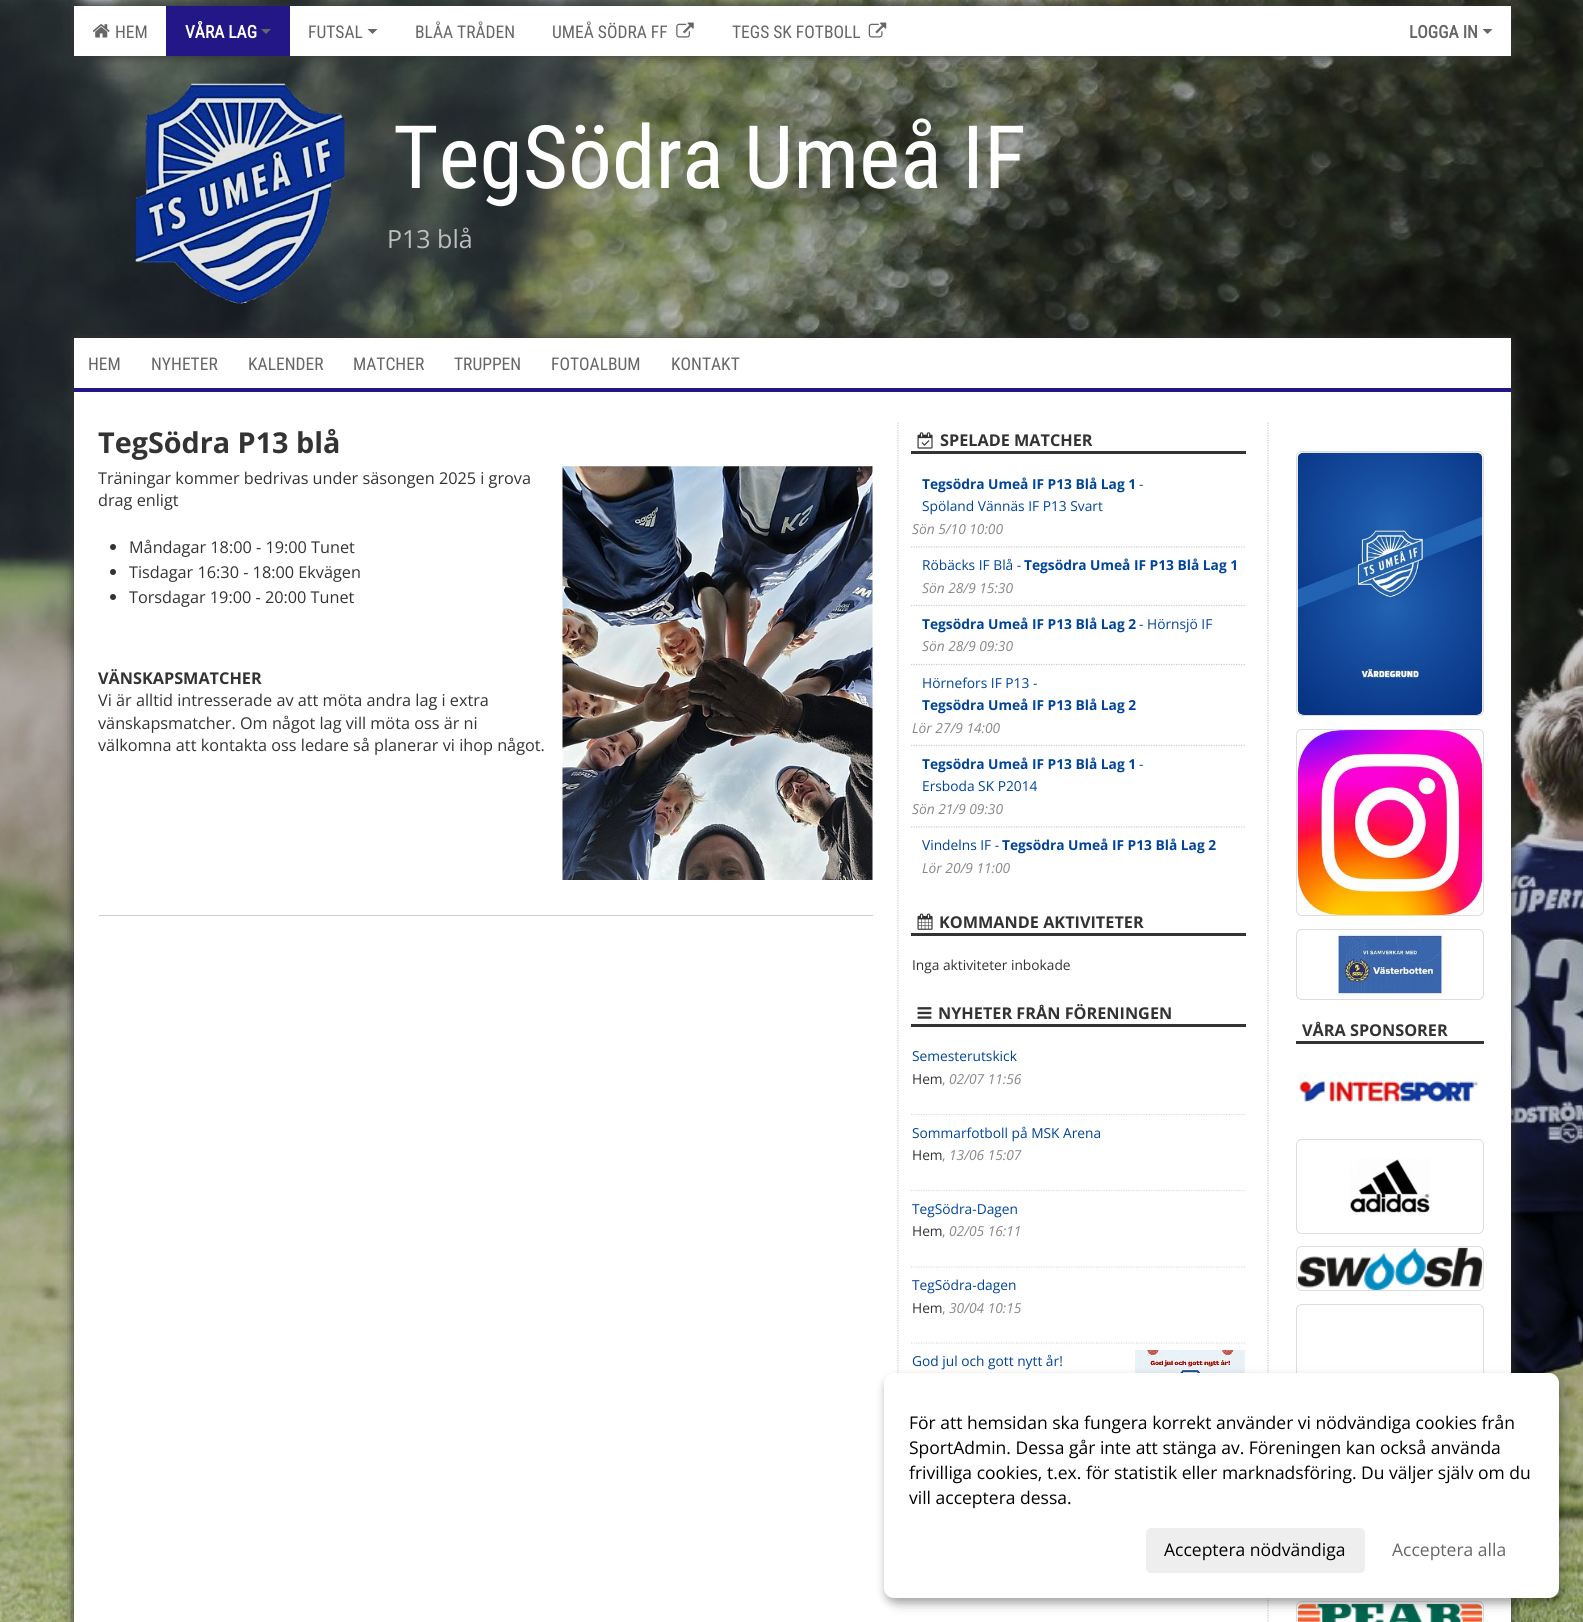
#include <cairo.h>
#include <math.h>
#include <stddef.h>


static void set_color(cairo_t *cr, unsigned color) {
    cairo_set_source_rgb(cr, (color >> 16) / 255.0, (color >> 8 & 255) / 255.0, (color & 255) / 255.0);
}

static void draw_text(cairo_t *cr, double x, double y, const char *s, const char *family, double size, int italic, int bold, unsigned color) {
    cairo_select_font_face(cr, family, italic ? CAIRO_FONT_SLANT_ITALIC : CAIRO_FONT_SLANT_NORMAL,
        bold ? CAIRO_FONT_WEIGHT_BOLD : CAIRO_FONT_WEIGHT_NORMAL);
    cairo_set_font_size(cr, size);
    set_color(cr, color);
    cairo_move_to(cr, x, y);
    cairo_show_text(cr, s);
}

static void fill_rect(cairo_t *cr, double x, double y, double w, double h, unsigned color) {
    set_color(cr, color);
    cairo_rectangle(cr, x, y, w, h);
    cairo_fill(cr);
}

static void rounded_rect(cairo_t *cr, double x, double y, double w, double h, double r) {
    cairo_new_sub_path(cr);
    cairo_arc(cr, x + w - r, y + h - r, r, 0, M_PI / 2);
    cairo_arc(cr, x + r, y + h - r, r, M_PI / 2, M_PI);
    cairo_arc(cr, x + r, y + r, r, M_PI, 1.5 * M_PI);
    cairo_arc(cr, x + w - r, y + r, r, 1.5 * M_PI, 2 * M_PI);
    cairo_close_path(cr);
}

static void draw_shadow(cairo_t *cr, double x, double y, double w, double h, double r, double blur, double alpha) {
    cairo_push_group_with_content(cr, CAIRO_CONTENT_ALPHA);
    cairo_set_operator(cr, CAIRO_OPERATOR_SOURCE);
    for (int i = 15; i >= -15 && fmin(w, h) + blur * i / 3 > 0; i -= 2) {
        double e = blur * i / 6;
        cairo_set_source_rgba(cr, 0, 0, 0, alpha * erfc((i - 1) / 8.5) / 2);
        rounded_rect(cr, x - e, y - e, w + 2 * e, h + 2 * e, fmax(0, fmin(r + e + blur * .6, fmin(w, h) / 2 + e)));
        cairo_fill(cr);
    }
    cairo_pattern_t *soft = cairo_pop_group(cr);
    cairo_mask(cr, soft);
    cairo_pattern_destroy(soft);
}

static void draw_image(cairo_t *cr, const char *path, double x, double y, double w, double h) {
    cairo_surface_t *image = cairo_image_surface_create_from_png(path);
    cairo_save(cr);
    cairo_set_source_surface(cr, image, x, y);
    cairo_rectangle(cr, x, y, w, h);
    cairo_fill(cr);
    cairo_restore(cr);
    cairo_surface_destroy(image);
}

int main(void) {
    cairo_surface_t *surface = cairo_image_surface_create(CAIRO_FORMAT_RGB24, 1583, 1622);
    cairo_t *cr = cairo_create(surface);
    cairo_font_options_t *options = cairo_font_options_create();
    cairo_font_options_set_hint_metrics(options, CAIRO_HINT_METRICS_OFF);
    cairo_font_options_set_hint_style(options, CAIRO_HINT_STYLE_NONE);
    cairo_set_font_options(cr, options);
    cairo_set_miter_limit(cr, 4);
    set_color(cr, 0xFFFFFF);
    cairo_paint(cr);
    draw_image(cr, "assets/img1.png", 0, 0, 1583, 1622);
    set_color(cr, 0x333333);
    draw_shadow(cr, 74, 6, 1437, 50, 0, 6, 1);
    fill_rect(cr, 74, 6, 1437, 50, 0xFFFFFF);
    draw_image(cr, "assets/img2.png", 92, 24, 18, 14);
    draw_text(cr, 115, 38, "HEM", "Roboto Condensed", 17.5, 0, 0, 0x666666);
    fill_rect(cr, 166, 6, 124, 50, 0x231787);
    draw_text(cr, 185, 38, "VÅRA LAG", "Roboto Condensed", 17.5, 0, 1, 0xFFFFFF);
    set_color(cr, 0x666666);
    cairo_new_path(cr);
    cairo_move_to(cr, 261, 29);
    cairo_line_to(cr, 271, 29);
    cairo_line_to(cr, 266, 34);
    cairo_close_path(cr);
    cairo_fill(cr);
    draw_text(cr, 308, 38, "FUTSAL", "Roboto Condensed", 17.5, 0, 0, 0x666666);
    cairo_new_path(cr);
    cairo_move_to(cr, 367.5, 29);
    cairo_line_to(cr, 377.5, 29);
    cairo_line_to(cr, 372.5, 34);
    cairo_close_path(cr);
    cairo_fill(cr);
    draw_text(cr, 415, 38, "BLÅA TRÅDEN", "Roboto Condensed", 17.5, 0, 0, 0x666666);
    draw_text(cr, 552, 38, "UMEÅ SÖDRA FF", "Roboto Condensed", 17.5, 0, 0, 0x666666);
    draw_image(cr, "assets/img3.png", 676, 22, 18, 16);
    draw_text(cr, 732, 38, "TEGS SK FOTBOLL", "Roboto Condensed", 17.5, 0, 0, 0x666666);
    draw_image(cr, "assets/img4.png", 868, 22, 19, 16);
    draw_text(cr, 1409, 38, "LOGGA IN", "Roboto Condensed", 17.5, 0, 1, 0x666666);
    cairo_new_path(cr);
    cairo_move_to(cr, 1482.5, 29);
    cairo_line_to(cr, 1492.5, 29);
    cairo_line_to(cr, 1487.5, 34);
    cairo_close_path(cr);
    cairo_fill(cr);
    draw_image(cr, "assets/img5.png", 135, 83, 210, 221);
    draw_text(cr, 393, 188, "TegSödra Umeå IF", "Roboto Condensed", 87.5, 0, 0, 0xFFFFFF);
    draw_text(cr, 387, 248, "P13 blå", "Open Sans", 25, 0, 0, 0xBFBFBF);
    set_color(cr, 0x333333);
    draw_shadow(cr, 74, 338, 1437, 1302, 0, 6, 1);
    fill_rect(cr, 74, 338, 1437, 1284, 0xFFFFFF);
    draw_text(cr, 88, 370, "HEM", "Roboto Condensed", 17.5, 0, 0, 0x666666);
    draw_text(cr, 151, 370, "NYHETER", "Roboto Condensed", 17.5, 0, 0, 0x666666);
    draw_text(cr, 248, 370, "KALENDER", "Roboto Condensed", 17.5, 0, 0, 0x666666);
    draw_text(cr, 353, 370, "MATCHER", "Roboto Condensed", 17.5, 0, 0, 0x666666);
    draw_text(cr, 454, 370, "TRUPPEN", "Roboto Condensed", 17.5, 0, 0, 0x666666);
    draw_text(cr, 551, 370, "FOTOALBUM", "Roboto Condensed", 17.5, 0, 0, 0x666666);
    draw_text(cr, 671, 370, "KONTAKT", "Roboto Condensed", 17.5, 0, 0, 0x666666);
    fill_rect(cr, 74, 388, 1437, 4, 0x231787);
    draw_text(cr, 98, 453, "TegSödra P13 blå", "Open Sans", 28.75, 0, 1, 0x333333);
    draw_text(cr, 98, 484, "Träningar kommer bedrivas under säsongen 2025 i grova", "Open Sans", 16.25, 0, 0, 0x333333);
    draw_text(cr, 98, 506, "drag enligt", "Open Sans", 16.25, 0, 0, 0x333333);
    cairo_new_path(cr);
    cairo_arc(cr, 113, 547, 3, 0, 2 * M_PI);
    cairo_fill(cr);
    draw_text(cr, 129, 553, "Måndagar 18:00 - 19:00 Tunet", "Open Sans", 16.25, 0, 0, 0x333333);
    cairo_new_path(cr);
    cairo_arc(cr, 113, 572, 3, 0, 2 * M_PI);
    cairo_fill(cr);
    draw_text(cr, 129, 578, "Tisdagar 16:30 - 18:00 Ekvägen", "Open Sans", 16.25, 0, 0, 0x333333);
    cairo_new_path(cr);
    cairo_arc(cr, 113, 597, 3, 0, 2 * M_PI);
    cairo_fill(cr);
    draw_text(cr, 129, 603, "Torsdagar 19:00 - 20:00 Tunet", "Open Sans", 16.25, 0, 0, 0x333333);
    draw_text(cr, 98, 684, "VÄNSKAPSMATCHER", "Open Sans", 16.25, 0, 1, 0x333333);
    draw_text(cr, 98, 706, "Vi är alltid intresserade av att möta andra lag i extra", "Open Sans", 16.25, 0, 0, 0x333333);
    draw_text(cr, 98, 729, "vänskapsmatcher. Om något lag vill möta oss är ni", "Open Sans", 16.25, 0, 0, 0x333333);
    draw_text(cr, 98, 751, "välkomna att kontakta oss ledare så planerar vi ihop något.", "Open Sans", 16.25, 0, 0, 0x333333);
    draw_image(cr, "assets/img6.png", 562, 466, 311, 414);
    fill_rect(cr, 99, 915, 774, 1, 0xCCCCCC);
    cairo_new_path(cr);
    cairo_move_to(cr, 898, 422.5);
    cairo_line_to(cr, 898, 1490);
    cairo_set_line_width(cr, 1.2);
    cairo_set_dash(cr, (double[]){1.25, 1.25}, 2, 0);
    cairo_stroke(cr);
    fill_rect(cr, 911, 451, 335, 3, 0x333333);
    draw_image(cr, "assets/img7.png", 917, 432, 16, 17);
    draw_text(cr, 940, 446, "SPELADE MATCHER", "Open Sans", 16.25, 0, 1, 0x333333);
    draw_text(cr, 922, 489, "Tegsödra Umeå IF P13 Blå Lag 1", "Open Sans", 13.75, 0, 1, 0x004499);
    draw_text(cr, 1139, 489, "-", "Open Sans", 13.75, 0, 0, 0x004499);
    draw_text(cr, 922, 511, "Spöland Vännäs IF P13 Svart", "Open Sans", 13.75, 0, 0, 0x004499);
    cairo_new_path(cr);
    cairo_move_to(cr, 911, 547);
    cairo_line_to(cr, 1246, 547);
    set_color(cr, 0xCCCCCC);
    cairo_stroke(cr);
    draw_text(cr, 912, 534, "Sön 5/10 10:00", "Open Sans", 13.75, 1, 0, 0x888888);
    draw_text(cr, 922, 570, "Röbäcks IF Blå -", "Open Sans", 13.75, 0, 0, 0x004499);
    draw_text(cr, 1024, 570, "Tegsödra Umeå IF P13 Blå Lag 1", "Open Sans", 13.75, 0, 1, 0x004499);
    cairo_new_path(cr);
    cairo_move_to(cr, 911, 605.5);
    cairo_line_to(cr, 1246, 605.5);
    set_color(cr, 0xCCCCCC);
    cairo_stroke(cr);
    draw_text(cr, 922, 593, "Sön 28/9 15:30", "Open Sans", 13.75, 1, 0, 0x888888);
    draw_text(cr, 922, 629, "Tegsödra Umeå IF P13 Blå Lag 2", "Open Sans", 13.75, 0, 1, 0x004499);
    draw_text(cr, 1139, 629, "- Hörnsjö IF", "Open Sans", 13.75, 0, 0, 0x004499);
    cairo_new_path(cr);
    cairo_move_to(cr, 911, 664.5);
    cairo_line_to(cr, 1246, 664.5);
    set_color(cr, 0xCCCCCC);
    cairo_stroke(cr);
    draw_text(cr, 922, 651, "Sön 28/9 09:30", "Open Sans", 13.75, 1, 0, 0x888888);
    draw_text(cr, 922, 688, "Hörnefors IF P13 -", "Open Sans", 13.75, 0, 0, 0x004499);
    draw_text(cr, 922, 710, "Tegsödra Umeå IF P13 Blå Lag 2", "Open Sans", 13.75, 0, 1, 0x004499);
    cairo_new_path(cr);
    cairo_move_to(cr, 911, 745.5);
    cairo_line_to(cr, 1246, 745.5);
    set_color(cr, 0xCCCCCC);
    cairo_stroke(cr);
    draw_text(cr, 912, 733, "Lör 27/9 14:00", "Open Sans", 13.75, 1, 0, 0x888888);
    draw_text(cr, 922, 769, "Tegsödra Umeå IF P13 Blå Lag 1", "Open Sans", 13.75, 0, 1, 0x004499);
    draw_text(cr, 1139, 769, "-", "Open Sans", 13.75, 0, 0, 0x004499);
    draw_text(cr, 922, 791, "Ersboda SK P2014", "Open Sans", 13.75, 0, 0, 0x004499);
    cairo_new_path(cr);
    cairo_move_to(cr, 911, 827);
    cairo_line_to(cr, 1246, 827);
    set_color(cr, 0xCCCCCC);
    cairo_stroke(cr);
    draw_text(cr, 912, 814, "Sön 21/9 09:30", "Open Sans", 13.75, 1, 0, 0x888888);
    draw_text(cr, 922, 850, "Vindelns IF -", "Open Sans", 13.75, 0, 0, 0x004499);
    draw_text(cr, 1002, 850, "Tegsödra Umeå IF P13 Blå Lag 2", "Open Sans", 13.75, 0, 1, 0x004499);
    draw_text(cr, 922, 873, "Lör 20/9 11:00", "Open Sans", 13.75, 1, 0, 0x888888);
    fill_rect(cr, 911, 933, 335, 3, 0x333333);
    draw_image(cr, "assets/img8.png", 917, 913, 16, 17);
    draw_text(cr, 939, 928, "KOMMANDE AKTIVITETER", "Open Sans", 16.25, 0, 1, 0x333333);
    draw_text(cr, 912, 970, "Inga aktiviteter inbokade", "Open Sans", 13.75, 0, 0, 0x333333);
    fill_rect(cr, 911, 1024, 335, 3, 0x333333);
    draw_image(cr, "assets/img9.png", 917, 1007, 15, 12);
    draw_text(cr, 938, 1019, "NYHETER FRÅN FÖRENINGEN", "Open Sans", 16.25, 0, 1, 0x333333);
    draw_text(cr, 912, 1061, "Semesterutskick", "Open Sans", 13.75, 0, 0, 0x004499);
    draw_text(cr, 912, 1084, "Hem", "Open Sans", 13.75, 0, 0, 0x333333);
    draw_text(cr, 942, 1084, ",", "Open Sans", 13.75, 0, 0, 0x888888);
    draw_text(cr, 949, 1084, "02/07 11:56", "Open Sans", 13.75, 1, 0, 0x888888);
    cairo_new_path(cr);
    cairo_move_to(cr, 911, 1114.5);
    cairo_line_to(cr, 1246, 1114.5);
    set_color(cr, 0xDDDDDD);
    cairo_stroke(cr);
    draw_text(cr, 912, 1138, "Sommarfotboll på MSK Arena", "Open Sans", 13.75, 0, 0, 0x004499);
    draw_text(cr, 912, 1160, "Hem", "Open Sans", 13.75, 0, 0, 0x333333);
    draw_text(cr, 942, 1160, ",", "Open Sans", 13.75, 0, 0, 0x888888);
    draw_text(cr, 949, 1160, "13/06 15:07", "Open Sans", 13.75, 1, 0, 0x888888);
    cairo_new_path(cr);
    cairo_move_to(cr, 911, 1190.5);
    cairo_line_to(cr, 1246, 1190.5);
    set_color(cr, 0xDDDDDD);
    cairo_stroke(cr);
    draw_text(cr, 912, 1214, "TegSödra-Dagen", "Open Sans", 13.75, 0, 0, 0x004499);
    draw_text(cr, 912, 1236, "Hem", "Open Sans", 13.75, 0, 0, 0x333333);
    draw_text(cr, 942, 1236, ",", "Open Sans", 13.75, 0, 0, 0x888888);
    draw_text(cr, 949, 1236, "02/05 16:11", "Open Sans", 13.75, 1, 0, 0x888888);
    cairo_new_path(cr);
    cairo_move_to(cr, 911, 1267);
    cairo_line_to(cr, 1246, 1267);
    set_color(cr, 0xDDDDDD);
    cairo_stroke(cr);
    draw_text(cr, 912, 1290, "TegSödra-dagen", "Open Sans", 13.75, 0, 0, 0x004499);
    draw_text(cr, 912, 1313, "Hem", "Open Sans", 13.75, 0, 0, 0x333333);
    draw_text(cr, 942, 1313, ",", "Open Sans", 13.75, 0, 0, 0x888888);
    draw_text(cr, 949, 1313, "30/04 10:15", "Open Sans", 13.75, 1, 0, 0x888888);
    cairo_new_path(cr);
    cairo_move_to(cr, 911, 1343);
    cairo_line_to(cr, 1246, 1343);
    set_color(cr, 0xDDDDDD);
    cairo_stroke(cr);
    draw_text(cr, 912, 1366, "God jul och gott nytt år!", "Open Sans", 13.75, 0, 0, 0x004499);
    draw_image(cr, "assets/img10.png", 1135, 1350, 110, 23);
    cairo_new_path(cr);
    cairo_move_to(cr, 1268, 422.5);
    cairo_line_to(cr, 1268, 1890);
    set_color(cr, 0xCCCCCC);
    cairo_stroke(cr);
    rounded_rect(cr, 1296.5, 451.5, 187, 264, 5.5);
    set_color(cr, 0xDDDDDD);
    cairo_set_line_width(cr, 1);
    cairo_set_dash(cr, NULL, 0, 0);
    cairo_stroke(cr);
    draw_image(cr, "assets/img11.png", 1297, 452, 186, 263);
    rounded_rect(cr, 1296.5, 729.5, 187, 186, 5.5);
    cairo_stroke(cr);
    draw_image(cr, "assets/img12.png", 1297, 730, 186, 185);
    rounded_rect(cr, 1296.5, 929.5, 187, 70, 5.5);
    cairo_stroke(cr);
    draw_image(cr, "assets/img13.png", 1336, 930, 111, 68);
    fill_rect(cr, 1296, 1041, 188, 3, 0x333333);
    draw_text(cr, 1302, 1036, "VÅRA SPONSORER", "Open Sans", 16.25, 0, 1, 0x333333);
    draw_image(cr, "assets/img14.png", 1299, 1079, 181, 24);
    rounded_rect(cr, 1296.5, 1139.5, 187, 94, 5.5);
    set_color(cr, 0xDDDDDD);
    cairo_stroke(cr);
    draw_image(cr, "assets/img15.png", 1350, 1159, 81, 56);
    rounded_rect(cr, 1296.5, 1246.5, 187, 44, 5.5);
    cairo_stroke(cr);
    draw_image(cr, "assets/img16.png", 1297, 1247, 186, 43);
    rounded_rect(cr, 1296.5, 1304.5, 187, 284, 5.5);
    cairo_stroke(cr);
    rounded_rect(cr, 1296.5, 1601.5, 187, 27, 5.5);
    cairo_stroke(cr);
    draw_image(cr, "assets/img17.png", 1297, 1603, 186, 19);
    set_color(cr, 0x000000);
    draw_shadow(cr, 890, 1379, 675, 225, 10, 6, 0.19);
    draw_shadow(cr, 884, 1378, 675, 225, 10, 4, 0.2);
    set_color(cr, 0xFFFFFF);
    rounded_rect(cr, 884, 1373, 675, 225, 10);
    cairo_fill(cr);
    draw_text(cr, 909, 1429, "För att hemsidan ska fungera korrekt använder vi nödvändiga cookies från", "Open Sans", 17.5, 0, 0, 0x000000);
    draw_text(cr, 909, 1454, "SportAdmin. Dessa går inte att stänga av. Föreningen kan också använda", "Open Sans", 17.5, 0, 0, 0x000000);
    draw_text(cr, 909, 1479, "frivilliga cookies, t.ex. för statistik eller marknadsföring. Du väljer själv om du", "Open Sans", 17.5, 0, 0, 0x000000);
    draw_text(cr, 909, 1504, "vill acceptera dessa.", "Open Sans", 17.5, 0, 0, 0x000000);
    set_color(cr, 0xEEEEEE);
    rounded_rect(cr, 1146, 1528, 219, 45, 5);
    cairo_fill(cr);
    draw_text(cr, 1164, 1556, "Acceptera nödvändiga", "Open Sans", 17.5, 0, 0, 0x000000);
    draw_text(cr, 1392, 1556, "Acceptera alla", "Open Sans", 17.5, 0, 0, 0x666666);
    cairo_surface_write_to_png(surface, "output.png");
    cairo_font_options_destroy(options);
    cairo_destroy(cr);
    cairo_surface_destroy(surface);
    return 0;
}
